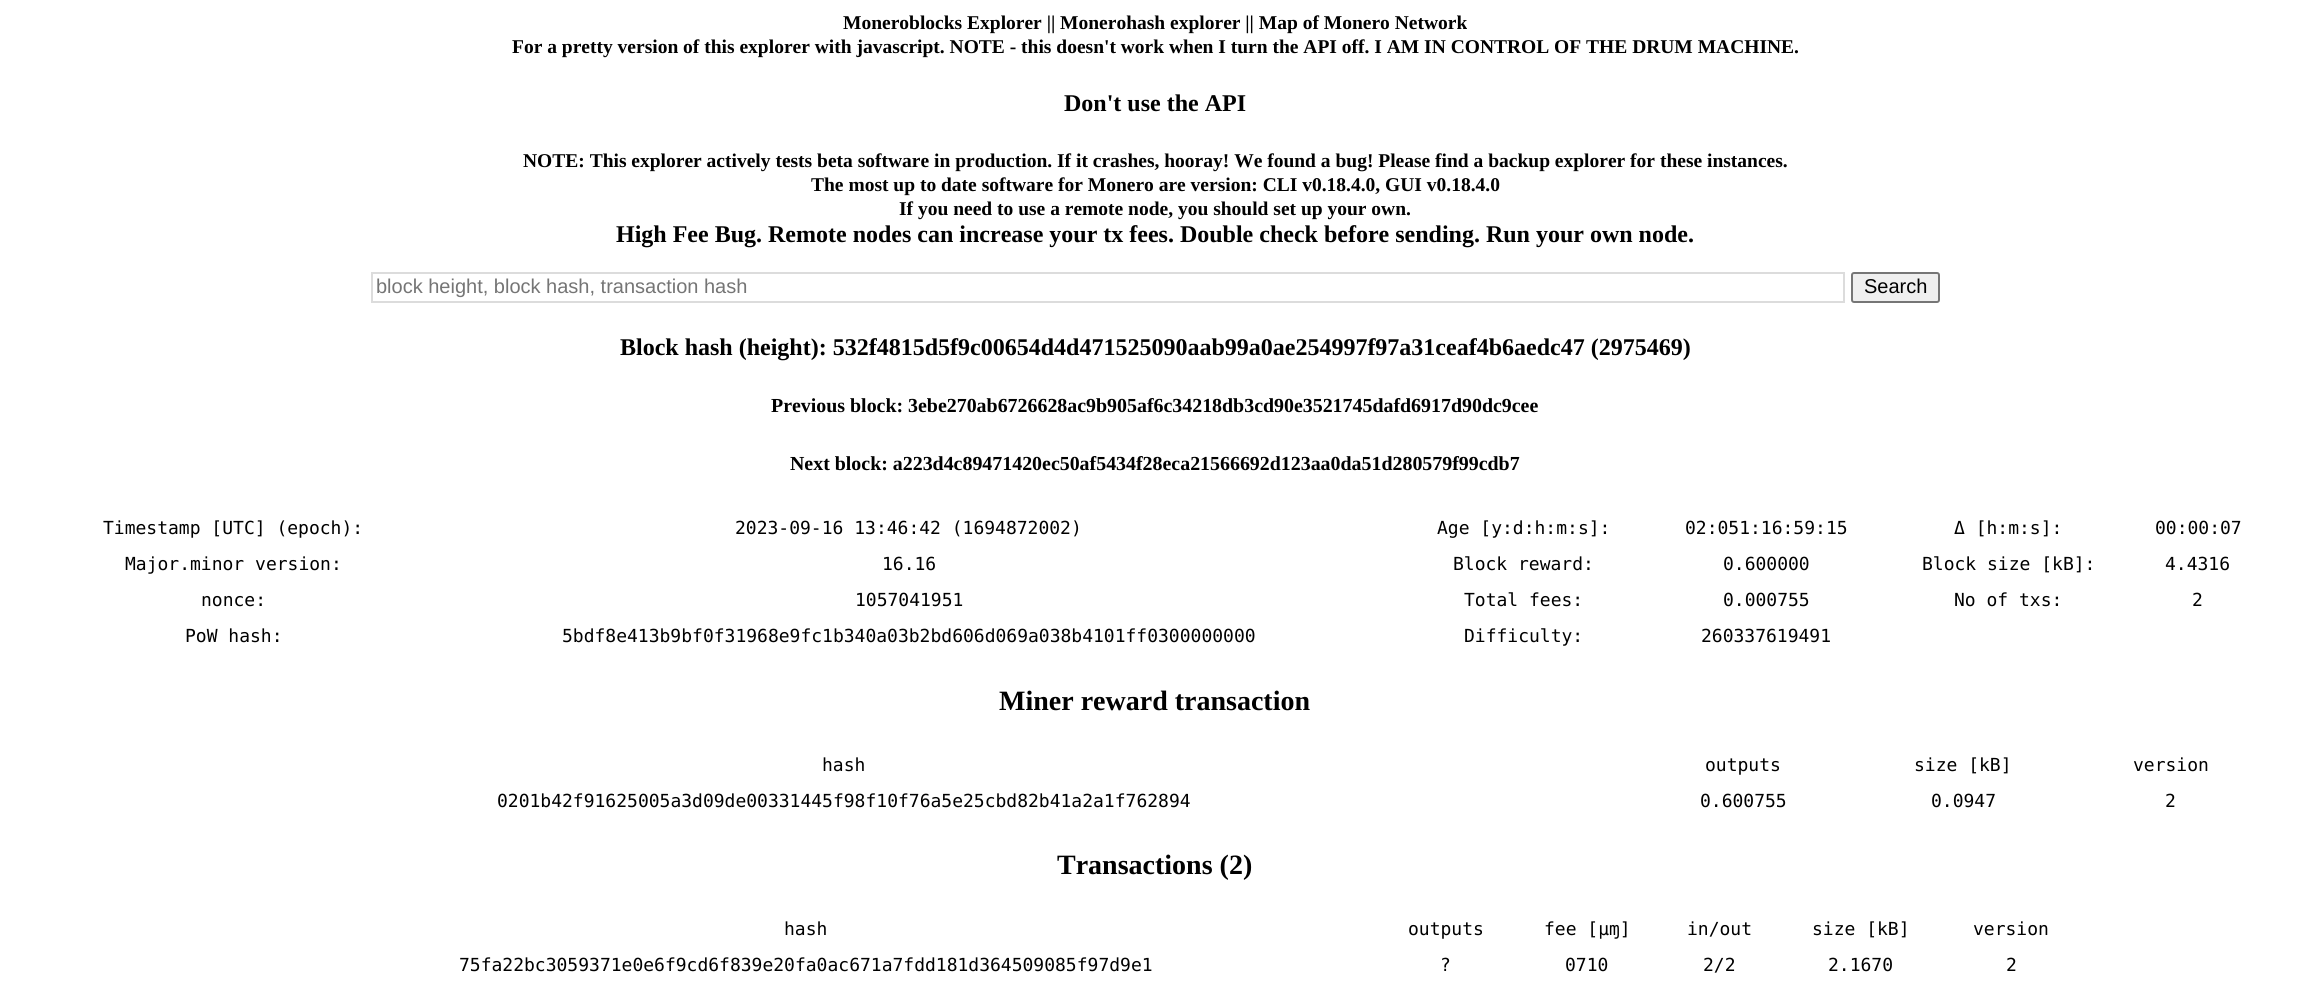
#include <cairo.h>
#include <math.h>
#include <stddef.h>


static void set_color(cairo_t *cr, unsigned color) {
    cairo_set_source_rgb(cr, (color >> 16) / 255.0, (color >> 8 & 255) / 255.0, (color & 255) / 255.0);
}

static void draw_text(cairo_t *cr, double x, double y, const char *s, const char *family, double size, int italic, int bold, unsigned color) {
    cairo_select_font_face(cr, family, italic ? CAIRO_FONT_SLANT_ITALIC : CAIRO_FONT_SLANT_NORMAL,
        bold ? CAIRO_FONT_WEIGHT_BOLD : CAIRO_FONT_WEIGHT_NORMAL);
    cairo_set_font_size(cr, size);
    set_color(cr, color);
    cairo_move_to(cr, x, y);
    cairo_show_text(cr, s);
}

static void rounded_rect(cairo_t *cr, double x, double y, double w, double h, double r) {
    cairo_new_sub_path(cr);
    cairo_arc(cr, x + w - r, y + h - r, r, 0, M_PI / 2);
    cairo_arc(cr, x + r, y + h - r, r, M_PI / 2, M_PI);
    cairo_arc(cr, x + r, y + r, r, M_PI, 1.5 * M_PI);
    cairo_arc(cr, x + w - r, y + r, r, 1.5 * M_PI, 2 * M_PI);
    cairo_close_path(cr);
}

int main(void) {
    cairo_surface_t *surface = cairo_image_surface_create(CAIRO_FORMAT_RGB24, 2310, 981);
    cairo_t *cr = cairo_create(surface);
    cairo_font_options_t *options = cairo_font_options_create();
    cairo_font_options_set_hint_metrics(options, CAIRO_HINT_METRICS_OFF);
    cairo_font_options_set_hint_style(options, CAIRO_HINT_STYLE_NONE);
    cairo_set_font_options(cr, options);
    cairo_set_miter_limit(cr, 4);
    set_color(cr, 0xFFFFFF);
    cairo_paint(cr);
    draw_text(cr, 843, 29, "Moneroblocks Explorer || Monerohash explorer || Map of Monero Network", "Liberation Serif", 19.5, 0, 1, 0x000000);
    draw_text(cr, 512, 53, "For a pretty version of this explorer with javascript. NOTE - this doesn't work when I turn the API off. I AM IN CONTROL OF THE DRUM MACHINE.", "Liberation Serif", 19.5, 0, 1, 0x000000);
    draw_text(cr, 1064, 111, "Don't use the API", "Liberation Serif", 24, 0, 1, 0x000000);
    draw_text(cr, 523, 167, "NOTE: This explorer actively tests beta software in production. If it crashes, hooray! We found a bug! Please find a backup explorer for these instances.", "Liberation Serif", 19.5, 0, 1, 0x000000);
    draw_text(cr, 811, 191, "The most up to date software for Monero are version: CLI v0.18.4.0, GUI v0.18.4.0", "Liberation Serif", 19.5, 0, 1, 0x000000);
    draw_text(cr, 899, 215, "If you need to use a remote node, you should set up your own.", "Liberation Serif", 19.5, 0, 1, 0x000000);
    draw_text(cr, 616, 242, "High Fee Bug. Remote nodes can increase your tx fees. Double check before sending. Run your own node.", "Liberation Serif", 24, 0, 1, 0x000000);
    cairo_rectangle(cr, 372, 273, 1472, 29);
    set_color(cr, 0xDCDCDC);
    cairo_stroke(cr);
    draw_text(cr, 376, 293, "block height, block hash, transaction hash", "Liberation Sans", 20, 0, 0, 0x757575);
    set_color(cr, 0xEFEFEF);
    rounded_rect(cr, 1852, 273, 87, 29, 2);
    cairo_fill_preserve(cr);
    set_color(cr, 0x767676);
    cairo_stroke(cr);
    draw_text(cr, 1864, 293, "Search", "Liberation Sans", 20, 0, 0, 0x000000);
    draw_text(cr, 620, 355, "Block hash (height): 532f4815d5f9c00654d4d471525090aab99a0ae254997f97a31ceaf4b6aedc47 (2975469)", "Liberation Serif", 24, 0, 1, 0x000000);
    draw_text(cr, 771, 412, "Previous block: 3ebe270ab6726628ac9b905af6c34218db3cd90e3521745dafd6917d90dc9cee", "Liberation Serif", 19.9, 0, 1, 0x000000);
    draw_text(cr, 790, 470, "Next block: a223d4c89471420ec50af5434f28eca21566692d123aa0da51d280579f99cdb7", "Liberation Serif", 19.9, 0, 1, 0x000000);
    draw_text(cr, 103, 534, "Timestamp [UTC] (epoch):", "DejaVu Sans Mono", 18, 0, 0, 0x000000);
    draw_text(cr, 735, 534, "2023-09-16 13:46:42 (1694872002)", "DejaVu Sans Mono", 18, 0, 0, 0x000000);
    draw_text(cr, 1437, 534, "Age [y:d:h:m:s]:", "DejaVu Sans Mono", 18, 0, 0, 0x000000);
    draw_text(cr, 1685, 534, "02:051:16:59:15", "DejaVu Sans Mono", 18, 0, 0, 0x000000);
    draw_text(cr, 1954, 534, "Δ [h:m:s]:", "DejaVu Sans Mono", 18, 0, 0, 0x000000);
    draw_text(cr, 2155, 534, "00:00:07", "DejaVu Sans Mono", 18, 0, 0, 0x000000);
    draw_text(cr, 125, 570, "Major.minor version:", "DejaVu Sans Mono", 18, 0, 0, 0x000000);
    draw_text(cr, 882, 570, "16.16", "DejaVu Sans Mono", 18, 0, 0, 0x000000);
    draw_text(cr, 1453, 570, "Block reward:", "DejaVu Sans Mono", 18, 0, 0, 0x000000);
    draw_text(cr, 1723, 570, "0.600000", "DejaVu Sans Mono", 18, 0, 0, 0x000000);
    draw_text(cr, 1922, 570, "Block size [kB]:", "DejaVu Sans Mono", 18, 0, 0, 0x000000);
    draw_text(cr, 2165, 570, "4.4316", "DejaVu Sans Mono", 18, 0, 0, 0x000000);
    draw_text(cr, 201, 606, "nonce:", "DejaVu Sans Mono", 18, 0, 0, 0x000000);
    draw_text(cr, 855, 606, "1057041951", "DejaVu Sans Mono", 18, 0, 0, 0x000000);
    draw_text(cr, 1464, 606, "Total fees:", "DejaVu Sans Mono", 18, 0, 0, 0x000000);
    draw_text(cr, 1723, 606, "0.000755", "DejaVu Sans Mono", 18, 0, 0, 0x000000);
    draw_text(cr, 1954, 606, "No of txs:", "DejaVu Sans Mono", 18, 0, 0, 0x000000);
    draw_text(cr, 2192, 606, "2", "DejaVu Sans Mono", 18, 0, 0, 0x000000);
    draw_text(cr, 185, 642, "PoW hash:", "DejaVu Sans Mono", 18, 0, 0, 0x000000);
    draw_text(cr, 562, 642, "5bdf8e413b9bf0f31968e9fc1b340a03b2bd606d069a038b4101ff0300000000", "DejaVu Sans Mono", 18, 0, 0, 0x000000);
    draw_text(cr, 1464, 642, "Difficulty:", "DejaVu Sans Mono", 18, 0, 0, 0x000000);
    draw_text(cr, 1701, 642, "260337619491", "DejaVu Sans Mono", 18, 0, 0, 0x000000);
    draw_text(cr, 999, 710, "Miner reward transaction", "Liberation Serif", 28, 0, 1, 0x000000);
    draw_text(cr, 822, 771, "hash", "DejaVu Sans Mono", 18, 0, 0, 0x000000);
    draw_text(cr, 1705, 771, "outputs", "DejaVu Sans Mono", 18, 0, 0, 0x000000);
    draw_text(cr, 1914, 771, "size [kB]", "DejaVu Sans Mono", 18, 0, 0, 0x000000);
    draw_text(cr, 2133, 771, "version", "DejaVu Sans Mono", 18, 0, 0, 0x000000);
    draw_text(cr, 497, 807, "0201b42f91625005a3d09de00331445f98f10f76a5e25cbd82b41a2a1f762894", "DejaVu Sans Mono", 18, 0, 0, 0x000000);
    draw_text(cr, 1700, 807, "0.600755", "DejaVu Sans Mono", 18, 0, 0, 0x000000);
    draw_text(cr, 1931, 807, "0.0947", "DejaVu Sans Mono", 18, 0, 0, 0x000000);
    draw_text(cr, 2165, 807, "2", "DejaVu Sans Mono", 18, 0, 0, 0x000000);
    draw_text(cr, 1057, 874, "Transactions (2)", "Liberation Serif", 28, 0, 1, 0x000000);
    draw_text(cr, 784, 935, "hash", "DejaVu Sans Mono", 18, 0, 0, 0x000000);
    draw_text(cr, 1408, 935, "outputs", "DejaVu Sans Mono", 18, 0, 0, 0x000000);
    draw_text(cr, 1544, 935, "fee [µɱ]", "DejaVu Sans Mono", 18, 0, 0, 0x000000);
    draw_text(cr, 1687, 935, "in/out", "DejaVu Sans Mono", 18, 0, 0, 0x000000);
    draw_text(cr, 1812, 935, "size [kB]", "DejaVu Sans Mono", 18, 0, 0, 0x000000);
    draw_text(cr, 1973, 935, "version", "DejaVu Sans Mono", 18, 0, 0, 0x000000);
    draw_text(cr, 459, 971, "75fa22bc3059371e0e6f9cd6f839e20fa0ac671a7fdd181d364509085f97d9e1", "DejaVu Sans Mono", 18, 0, 0, 0x000000);
    draw_text(cr, 1440, 971, "?", "DejaVu Sans Mono", 18, 0, 0, 0x000000);
    draw_text(cr, 1565, 971, "0710", "DejaVu Sans Mono", 18, 0, 0, 0x000000);
    draw_text(cr, 1703, 971, "2/2", "DejaVu Sans Mono", 18, 0, 0, 0x000000);
    draw_text(cr, 1828, 971, "2.1670", "DejaVu Sans Mono", 18, 0, 0, 0x000000);
    draw_text(cr, 2006, 971, "2", "DejaVu Sans Mono", 18, 0, 0, 0x000000);
    cairo_surface_write_to_png(surface, "output.png");
    cairo_font_options_destroy(options);
    cairo_destroy(cr);
    cairo_surface_destroy(surface);
    return 0;
}
